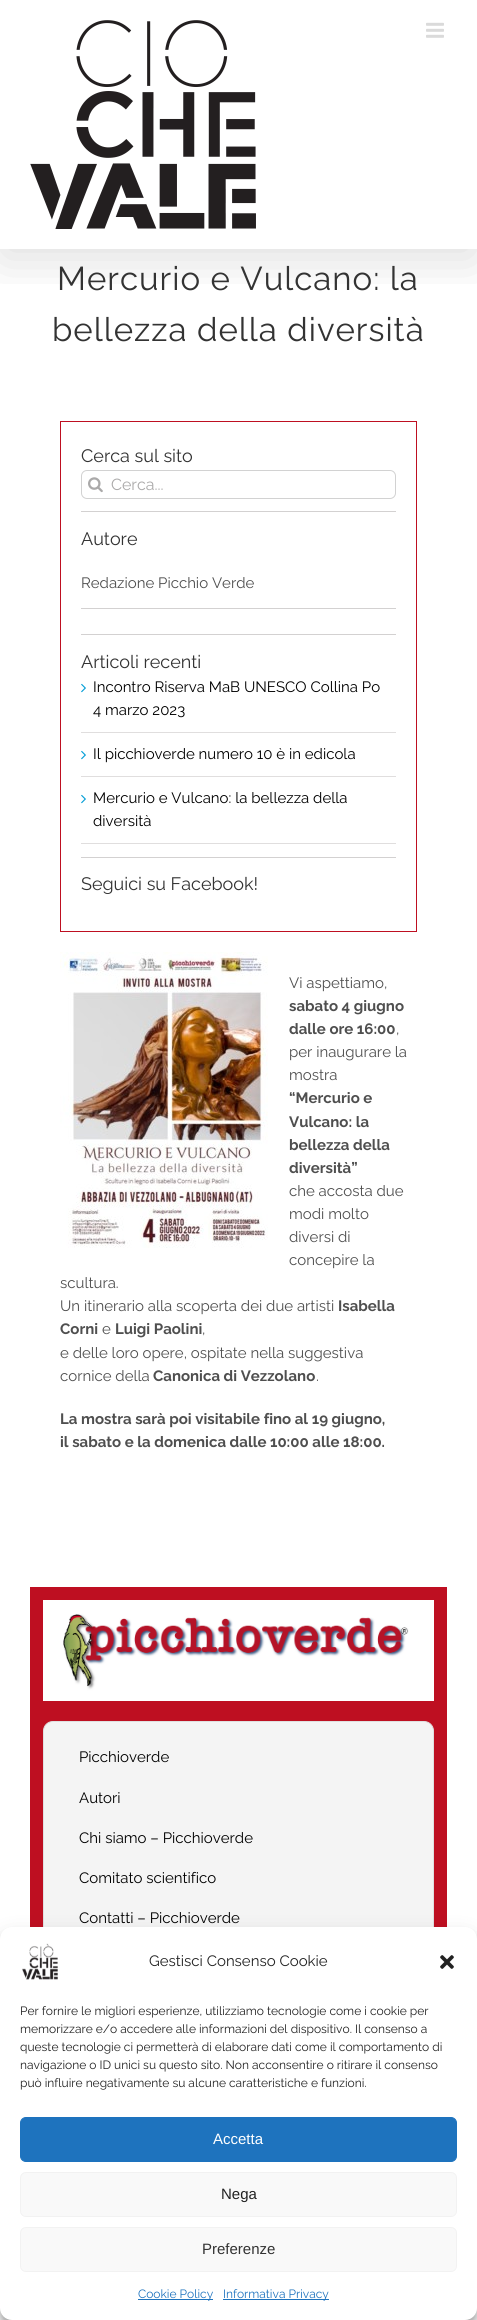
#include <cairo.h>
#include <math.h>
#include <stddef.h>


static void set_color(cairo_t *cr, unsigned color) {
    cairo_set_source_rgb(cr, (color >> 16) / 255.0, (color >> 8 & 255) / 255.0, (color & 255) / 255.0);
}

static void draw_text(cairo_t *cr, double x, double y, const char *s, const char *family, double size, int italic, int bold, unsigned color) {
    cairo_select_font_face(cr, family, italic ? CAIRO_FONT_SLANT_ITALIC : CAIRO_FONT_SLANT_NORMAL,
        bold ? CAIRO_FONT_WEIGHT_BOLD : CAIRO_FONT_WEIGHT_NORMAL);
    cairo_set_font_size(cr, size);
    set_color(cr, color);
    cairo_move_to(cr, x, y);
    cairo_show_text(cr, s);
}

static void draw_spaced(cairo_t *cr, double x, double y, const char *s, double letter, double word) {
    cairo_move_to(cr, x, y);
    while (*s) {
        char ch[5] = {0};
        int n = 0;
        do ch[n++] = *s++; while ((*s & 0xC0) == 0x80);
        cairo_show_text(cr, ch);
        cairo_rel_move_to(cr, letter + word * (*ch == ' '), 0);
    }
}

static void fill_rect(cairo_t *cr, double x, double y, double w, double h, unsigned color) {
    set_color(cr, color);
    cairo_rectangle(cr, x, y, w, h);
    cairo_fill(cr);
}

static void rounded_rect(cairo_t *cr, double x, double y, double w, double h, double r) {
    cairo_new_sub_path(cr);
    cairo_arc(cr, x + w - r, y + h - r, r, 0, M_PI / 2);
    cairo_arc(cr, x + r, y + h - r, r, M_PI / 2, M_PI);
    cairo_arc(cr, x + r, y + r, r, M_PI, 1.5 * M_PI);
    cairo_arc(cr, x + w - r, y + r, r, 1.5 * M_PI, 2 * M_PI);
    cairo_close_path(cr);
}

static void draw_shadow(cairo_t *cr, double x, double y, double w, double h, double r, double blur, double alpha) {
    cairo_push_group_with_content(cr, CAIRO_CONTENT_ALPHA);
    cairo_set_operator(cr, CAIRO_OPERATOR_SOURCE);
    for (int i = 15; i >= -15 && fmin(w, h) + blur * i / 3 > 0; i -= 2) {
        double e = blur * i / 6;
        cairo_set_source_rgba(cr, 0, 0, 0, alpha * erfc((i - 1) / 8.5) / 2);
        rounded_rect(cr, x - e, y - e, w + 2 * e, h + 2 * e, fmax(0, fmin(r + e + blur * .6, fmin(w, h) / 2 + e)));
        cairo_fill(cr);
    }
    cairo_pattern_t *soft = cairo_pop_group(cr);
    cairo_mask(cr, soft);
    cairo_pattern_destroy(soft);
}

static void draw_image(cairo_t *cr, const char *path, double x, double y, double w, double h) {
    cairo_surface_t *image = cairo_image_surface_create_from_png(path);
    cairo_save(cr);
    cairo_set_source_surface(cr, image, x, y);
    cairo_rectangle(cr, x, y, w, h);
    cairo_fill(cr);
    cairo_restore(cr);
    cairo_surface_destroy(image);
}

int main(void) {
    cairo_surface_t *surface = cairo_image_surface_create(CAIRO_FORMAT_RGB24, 477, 2320);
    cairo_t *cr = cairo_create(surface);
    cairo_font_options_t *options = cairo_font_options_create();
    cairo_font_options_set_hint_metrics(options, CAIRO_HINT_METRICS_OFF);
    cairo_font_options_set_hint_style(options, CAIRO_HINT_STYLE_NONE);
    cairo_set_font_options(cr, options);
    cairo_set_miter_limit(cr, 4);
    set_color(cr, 0xFFFFFF);
    cairo_paint(cr);
    cairo_save(cr);
    cairo_rectangle(cr, 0, 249, 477, 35);
    cairo_clip(cr);
    set_color(cr, 0x000000);
    draw_shadow(cr, 2, 12, 473, 245, 0, 25, 0.14);
    cairo_restore(cr);
    draw_image(cr, "assets/img1.png", 30, 20, 226, 209);
    draw_image(cr, "assets/img2.png", 426, 22, 18, 16);
    cairo_select_font_face(cr, "Raleway", CAIRO_FONT_SLANT_NORMAL, CAIRO_FONT_WEIGHT_NORMAL);
    cairo_set_font_size(cr, 33);
    set_color(cr, 0x333333);
    draw_spaced(cr, 57, 290, "Mercurio e Vulcano: la", 1, 0);
    draw_spaced(cr, 52, 341, "bellezza della diversità", 1, 0);
    cairo_rectangle(cr, 60.5, 421.5, 356, 510);
    set_color(cr, 0xBE0F21);
    cairo_set_line_width(cr, 1);
    cairo_stroke(cr);
    draw_text(cr, 81, 462, "Cerca sul sito", "Raleway", 18, 0, 0, 0x333333);
    rounded_rect(cr, 81.5, 470.5, 314, 28, 5.5);
    set_color(cr, 0xD2D2D2);
    cairo_stroke(cr);
    draw_image(cr, "assets/img3.png", 88, 477, 15, 16);
    draw_text(cr, 111, 490, "Cerca...", "Raleway", 16, 0, 0, 0xAAA9A9);
    fill_rect(cr, 81, 511, 315, 1, 0xD3D1D1);
    draw_text(cr, 81, 545, "Autore", "Raleway", 18, 0, 0, 0x333333);
    draw_text(cr, 81, 588, "Redazione Picchio Verde", "Raleway", 15, 0, 0, 0x4F4F4F);
    fill_rect(cr, 81, 608, 315, 1, 0xD3D1D1);
    fill_rect(cr, 81, 634, 315, 1, 0xD3D1D1);
    draw_text(cr, 81, 668, "Articoli recenti", "Raleway", 18, 0, 0, 0x333333);
    fill_rect(cr, 81, 732, 315, 1, 0xE0DEDE);
    draw_image(cr, "assets/img4.png", 81, 683, 5, 10);
    draw_text(cr, 93, 692, "Incontro Riserva MaB UNESCO Collina Po", "Raleway", 15, 0, 0, 0x000000);
    draw_text(cr, 93, 715, "4 marzo 2023", "Raleway", 15, 0, 0, 0x000000);
    fill_rect(cr, 81, 776, 315, 1, 0xE0DEDE);
    draw_image(cr, "assets/img4.png", 81, 750, 5, 10);
    draw_text(cr, 93, 759, "Il picchioverde numero 10 è in edicola", "Raleway", 15, 0, 0, 0x000000);
    fill_rect(cr, 81, 843, 315, 1, 0xE0DEDE);
    draw_image(cr, "assets/img4.png", 81, 794, 5, 10);
    draw_text(cr, 93, 803, "Mercurio e Vulcano: la bellezza della", "Raleway", 15, 0, 0, 0x000000);
    draw_text(cr, 93, 826, "diversità", "Raleway", 15, 0, 0, 0x000000);
    fill_rect(cr, 81, 857, 315, 1, 0xD3D1D1);
    draw_text(cr, 81, 890, "Seguici su Facebook!", "Raleway", 18, 0, 0, 0x333333);
    draw_image(cr, "assets/img5.png", 60, 952, 208, 296);
    draw_text(cr, 289, 988, "Vi aspettiamo,", "Raleway", 15, 0, 0, 0x4F4F4F);
    draw_text(cr, 289, 1011, "sabato 4 giugno", "Raleway", 15, 0, 1, 0x4F4F4F);
    draw_text(cr, 289, 1034, "dalle ore 16:00", "Raleway", 15, 0, 1, 0x4F4F4F);
    draw_text(cr, 396, 1034, ",", "Raleway", 15, 0, 0, 0x4F4F4F);
    draw_text(cr, 289, 1057, "per inaugurare la", "Raleway", 15, 0, 0, 0x4F4F4F);
    draw_text(cr, 289, 1080, "mostra", "Raleway", 15, 0, 0, 0x4F4F4F);
    draw_text(cr, 289, 1103, "“Mercurio e", "Raleway", 15, 0, 1, 0x4F4F4F);
    draw_text(cr, 289, 1127, "Vulcano: la", "Raleway", 15, 0, 1, 0x4F4F4F);
    draw_text(cr, 289, 1150, "bellezza della", "Raleway", 15, 0, 1, 0x4F4F4F);
    draw_text(cr, 289, 1173, "diversità”", "Raleway", 15, 0, 1, 0x4F4F4F);
    draw_text(cr, 289, 1196, "che accosta due", "Raleway", 15, 0, 0, 0x4F4F4F);
    draw_text(cr, 289, 1219, "modi molto", "Raleway", 15, 0, 0, 0x4F4F4F);
    draw_text(cr, 289, 1242, "diversi di", "Raleway", 15, 0, 0, 0x4F4F4F);
    draw_text(cr, 289, 1265, "concepire la", "Raleway", 15, 0, 0, 0x4F4F4F);
    draw_text(cr, 60, 1288, "scultura.", "Raleway", 15, 0, 0, 0x4F4F4F);
    draw_text(cr, 60, 1311, "Un itinerario alla scoperta dei due artisti", "Raleway", 15, 0, 0, 0x4F4F4F);
    draw_text(cr, 338, 1311, "Isabella", "Raleway", 15, 0, 1, 0x4F4F4F);
    draw_text(cr, 60, 1334, "Corni", "Raleway", 15, 0, 1, 0x4F4F4F);
    draw_text(cr, 102, 1334, "e", "Raleway", 15, 0, 0, 0x4F4F4F);
    draw_text(cr, 115, 1334, "Luigi Paolini", "Raleway", 15, 0, 1, 0x4F4F4F);
    draw_text(cr, 202, 1334, ",", "Raleway", 15, 0, 0, 0x4F4F4F);
    draw_text(cr, 60, 1358, "e delle loro opere, ospitate nella suggestiva", "Raleway", 15, 0, 0, 0x4F4F4F);
    draw_text(cr, 60, 1381, "cornice della", "Raleway", 15, 0, 0, 0x4F4F4F);
    draw_text(cr, 153, 1381, "Canonica di Vezzolano", "Raleway", 15, 0, 1, 0x4F4F4F);
    draw_text(cr, 316, 1381, ".", "Raleway", 15, 0, 0, 0x4F4F4F);
    draw_text(cr, 60, 1424, "La mostra sarà poi visitabile fino al 19 giugno,", "Raleway", 15, 0, 1, 0x4F4F4F);
    draw_text(cr, 60, 1447, "il sabato e la domenica dalle 10:00 alle 18:00.", "Raleway", 15, 0, 1, 0x4F4F4F);
    fill_rect(cr, 30, 1587, 417, 340, 0xBE0F21);
    draw_image(cr, "assets/img6.png", 43, 1600, 391, 101);
    set_color(cr, 0xF4F4F4);
    rounded_rect(cr, 43.5, 1721.5, 390, 515, 9.5);
    cairo_fill_preserve(cr);
    set_color(cr, 0xE0E0E0);
    cairo_stroke(cr);
    draw_text(cr, 79, 1762, "Picchioverde", "Raleway", 15, 0, 0, 0x000000);
    draw_text(cr, 79, 1803, "Autori", "Raleway", 15, 0, 0, 0x000000);
    draw_text(cr, 79, 1843, "Chi siamo – Picchioverde", "Raleway", 15, 0, 0, 0x000000);
    draw_text(cr, 79, 1883, "Comitato scientifico", "Raleway", 15, 0, 0, 0x000000);
    draw_text(cr, 79, 1923, "Contatti – Picchioverde", "Raleway", 15, 0, 0, 0x000000);
    set_color(cr, 0x000000);
    draw_shadow(cr, 0, 1933, 477, 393, 12, 3, 0.23);
    draw_shadow(cr, 0, 1937, 477, 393, 12, 10, 0.19);
    set_color(cr, 0xFFFFFF);
    rounded_rect(cr, 0, 1927, 477, 393, 12);
    cairo_fill(cr);
    draw_image(cr, "assets/img7.png", 22, 1943, 36, 37);
    draw_text(cr, 149, 1966, "Gestisci Consenso Cookie", "Raleway", 15, 0, 0, 0x222222);
    draw_image(cr, "assets/img8.png", 440, 1955, 14, 14);
    draw_text(cr, 20, 2015, "Per fornire le migliori esperienze, utilizziamo tecnologie come i cookie per", "Raleway", 12, 0, 0, 0x222222);
    draw_text(cr, 20, 2033, "memorizzare e/o accedere alle informazioni del dispositivo. Il consenso a", "Raleway", 12, 0, 0, 0x222222);
    draw_text(cr, 20, 2051, "queste tecnologie ci permetterà di elaborare dati come il comportamento di", "Raleway", 12, 0, 0, 0x222222);
    draw_text(cr, 20, 2069, "navigazione o ID unici su questo sito. Non acconsentire o ritirare il consenso", "Raleway", 12, 0, 0, 0x222222);
    draw_text(cr, 20, 2087, "può influire negativamente su alcune caratteristiche e funzioni.", "Raleway", 12, 0, 0, 0x222222);
    set_color(cr, 0x1E73BE);
    rounded_rect(cr, 20.5, 2117.5, 436, 44, 5.5);
    cairo_fill_preserve(cr);
    cairo_stroke(cr);
    draw_text(cr, 213, 2144, "Accetta", "Liberation Sans", 15, 0, 0, 0xFFFFFF);
    set_color(cr, 0xF9F9F9);
    rounded_rect(cr, 20.5, 2172.5, 436, 44, 5.5);
    cairo_fill_preserve(cr);
    set_color(cr, 0xF2F2F2);
    cairo_stroke(cr);
    draw_text(cr, 221, 2199, "Nega", "Liberation Sans", 15, 0, 0, 0x222222);
    set_color(cr, 0xF9F9F9);
    rounded_rect(cr, 20.5, 2227.5, 436, 44, 5.5);
    cairo_fill_preserve(cr);
    set_color(cr, 0xF2F2F2);
    cairo_stroke(cr);
    draw_text(cr, 202, 2254, "Preferenze", "Liberation Sans", 15, 0, 0, 0x333333);
    fill_rect(cr, 138, 2299, 75, 1, 0x1E73BE);
    draw_text(cr, 138, 2298, "Cookie Policy", "Raleway", 12, 0, 0, 0x1E73BE);
    fill_rect(cr, 223, 2299, 106, 1, 0x1E73BE);
    draw_text(cr, 223, 2298, "Informativa Privacy", "Raleway", 12, 0, 0, 0x1E73BE);
    cairo_surface_write_to_png(surface, "output.png");
    cairo_font_options_destroy(options);
    cairo_destroy(cr);
    cairo_surface_destroy(surface);
    return 0;
}
